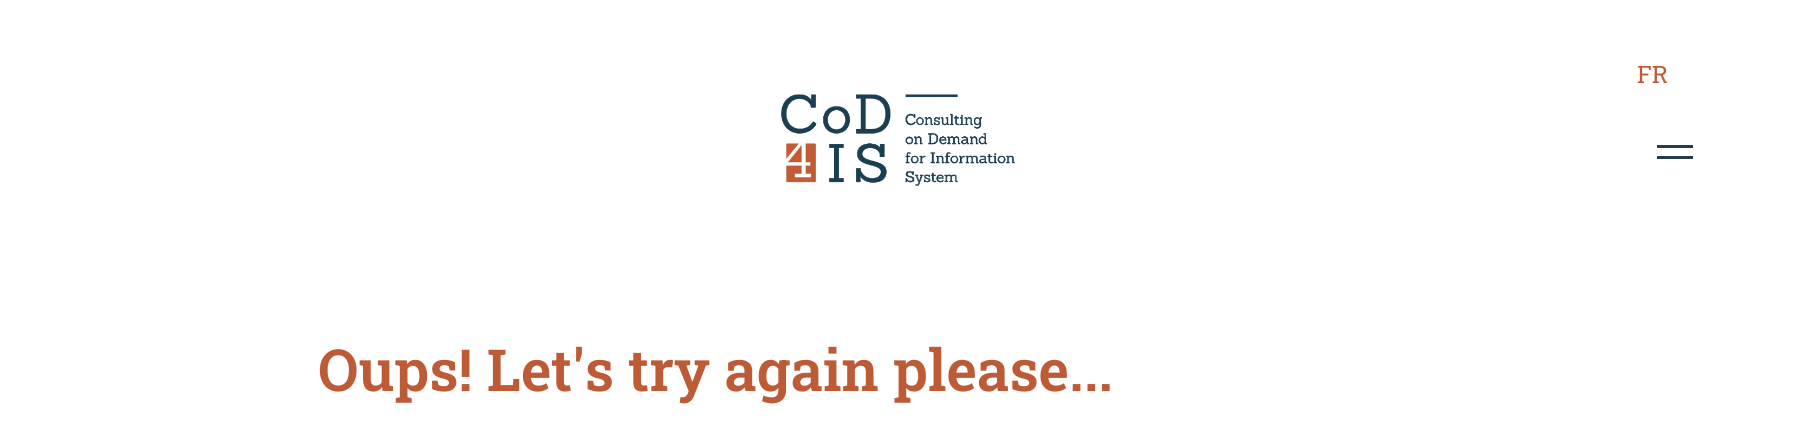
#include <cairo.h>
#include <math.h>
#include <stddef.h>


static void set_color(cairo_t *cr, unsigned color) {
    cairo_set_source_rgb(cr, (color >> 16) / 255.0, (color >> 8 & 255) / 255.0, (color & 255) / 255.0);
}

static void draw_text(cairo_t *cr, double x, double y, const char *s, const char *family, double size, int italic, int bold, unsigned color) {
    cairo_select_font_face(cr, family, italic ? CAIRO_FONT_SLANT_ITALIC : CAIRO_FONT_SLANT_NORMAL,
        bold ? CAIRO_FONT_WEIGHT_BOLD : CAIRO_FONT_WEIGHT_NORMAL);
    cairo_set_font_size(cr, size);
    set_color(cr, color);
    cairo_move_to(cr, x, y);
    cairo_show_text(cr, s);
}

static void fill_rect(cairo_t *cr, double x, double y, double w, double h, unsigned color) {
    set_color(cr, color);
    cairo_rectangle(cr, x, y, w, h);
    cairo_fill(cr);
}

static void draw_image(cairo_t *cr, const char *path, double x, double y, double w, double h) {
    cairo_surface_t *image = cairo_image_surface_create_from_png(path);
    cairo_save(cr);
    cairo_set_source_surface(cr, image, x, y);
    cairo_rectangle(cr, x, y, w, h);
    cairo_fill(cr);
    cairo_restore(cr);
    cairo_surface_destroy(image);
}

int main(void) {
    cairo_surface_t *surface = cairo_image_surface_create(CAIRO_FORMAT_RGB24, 1796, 429);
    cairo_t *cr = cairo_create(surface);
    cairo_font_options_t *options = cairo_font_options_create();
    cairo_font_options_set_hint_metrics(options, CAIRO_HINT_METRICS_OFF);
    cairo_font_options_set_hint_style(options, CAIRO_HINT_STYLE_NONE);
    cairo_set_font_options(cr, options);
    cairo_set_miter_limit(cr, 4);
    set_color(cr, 0xFFFFFF);
    cairo_paint(cr);
    draw_text(cr, 1637, 83, "FR", "Roboto Slab", 24, 0, 0, 0xBD5B37);
    fill_rect(cr, 1657, 145, 36, 3, 0x243D4F);
    fill_rect(cr, 1657, 156, 36, 3, 0x243D4F);
    draw_image(cr, "assets/img1.png", 781, 94, 234, 92);
    draw_text(cr, 318, 391, "Oups! Let's try again please...", "Roboto Slab SemiBold", 58, 0, 0, 0xBD5B37);
    cairo_surface_write_to_png(surface, "output.png");
    cairo_font_options_destroy(options);
    cairo_destroy(cr);
    cairo_surface_destroy(surface);
    return 0;
}
